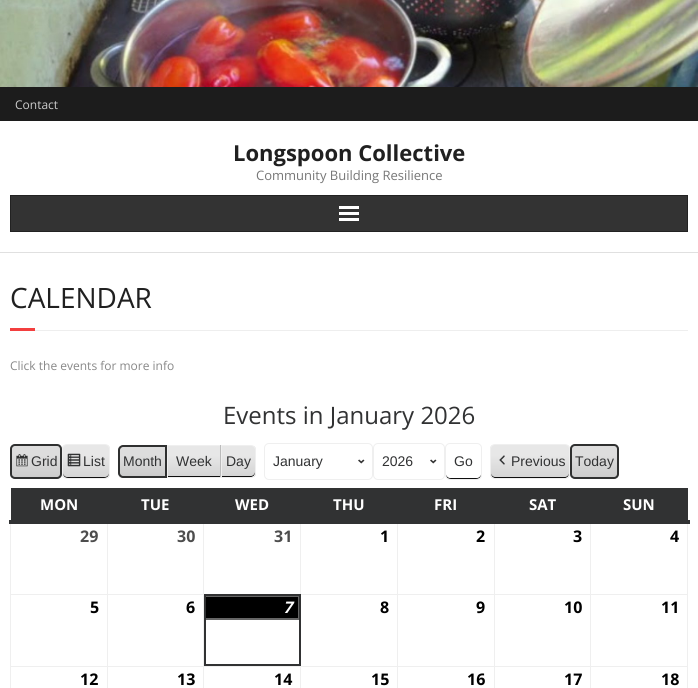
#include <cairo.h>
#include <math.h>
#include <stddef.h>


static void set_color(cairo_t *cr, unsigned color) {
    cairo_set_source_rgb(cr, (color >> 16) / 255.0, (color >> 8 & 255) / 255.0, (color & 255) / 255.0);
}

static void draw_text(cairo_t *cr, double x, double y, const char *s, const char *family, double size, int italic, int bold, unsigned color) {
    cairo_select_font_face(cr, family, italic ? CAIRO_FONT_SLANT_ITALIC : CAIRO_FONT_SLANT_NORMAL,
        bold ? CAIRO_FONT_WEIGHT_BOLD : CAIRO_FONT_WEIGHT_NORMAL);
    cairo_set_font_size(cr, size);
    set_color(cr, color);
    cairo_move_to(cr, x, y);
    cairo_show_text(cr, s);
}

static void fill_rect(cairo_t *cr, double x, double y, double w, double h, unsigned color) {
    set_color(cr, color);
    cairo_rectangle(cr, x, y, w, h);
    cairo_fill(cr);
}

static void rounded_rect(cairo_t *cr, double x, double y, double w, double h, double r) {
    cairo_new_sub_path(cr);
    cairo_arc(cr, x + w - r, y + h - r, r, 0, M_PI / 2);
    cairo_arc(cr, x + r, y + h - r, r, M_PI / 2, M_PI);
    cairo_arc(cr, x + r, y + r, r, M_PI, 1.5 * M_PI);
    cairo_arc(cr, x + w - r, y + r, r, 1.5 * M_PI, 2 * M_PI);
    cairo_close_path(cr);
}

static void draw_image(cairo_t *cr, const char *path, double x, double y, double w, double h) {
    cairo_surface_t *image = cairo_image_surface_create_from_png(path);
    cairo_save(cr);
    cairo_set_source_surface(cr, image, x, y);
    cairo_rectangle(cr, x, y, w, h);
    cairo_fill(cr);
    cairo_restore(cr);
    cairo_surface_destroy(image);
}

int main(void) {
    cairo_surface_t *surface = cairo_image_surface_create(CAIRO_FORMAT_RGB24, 698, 688);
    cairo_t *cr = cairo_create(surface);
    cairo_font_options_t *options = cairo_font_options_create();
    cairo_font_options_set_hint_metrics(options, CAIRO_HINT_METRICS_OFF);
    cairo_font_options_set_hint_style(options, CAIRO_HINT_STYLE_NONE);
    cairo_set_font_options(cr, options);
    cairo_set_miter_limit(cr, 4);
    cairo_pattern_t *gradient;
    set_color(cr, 0xFFFFFF);
    cairo_paint(cr);
    draw_image(cr, "assets/img1.png", 0, 0, 698, 87);
    fill_rect(cr, 0, 87, 698, 34, 0x1C1C1C);
    draw_text(cr, 15, 109, "Contact", "Open Sans", 12, 0, 0, 0xCCCCCC);
    fill_rect(cr, 0, 252, 698, 1, 0xE0E0E0);
    draw_text(cr, 233, 161, "Longspoon Collective", "Open Sans", 22, 0, 1, 0x202020);
    draw_text(cr, 256, 180, "Community Building Resilience", "Open Sans", 13, 0, 0, 0x777777);
    set_color(cr, 0x333333);
    cairo_rectangle(cr, 10.5, 195.5, 677, 36);
    cairo_fill_preserve(cr);
    set_color(cr, 0x222222);
    cairo_set_line_width(cr, 1);
    cairo_stroke(cr);
    fill_rect(cr, 339, 206, 20, 3, 0xFFFFFF);
    fill_rect(cr, 339, 212, 20, 3, 0xFFFFFF);
    fill_rect(cr, 339, 218, 20, 3, 0xFFFFFF);
    draw_text(cr, 10, 308, "CALENDAR", "Open Sans", 28, 0, 0, 0x202020);
    fill_rect(cr, 10, 328, 25, 3, 0xF33F3F);
    fill_rect(cr, 35, 330, 653, 1, 0xEEEEEE);
    draw_text(cr, 10, 370, "Click the events for more info", "Open Sans", 12, 0, 0, 0x888888);
    draw_text(cr, 223, 424, "Events in January 2026", "Open Sans", 24, 0, 0, 0x313233);
    cairo_save(cr);
    rounded_rect(cr, 10, 444, 52, 35, 5);
    cairo_clip(cr);
    gradient = cairo_pattern_create_linear(36, 478, 36, 445);
    cairo_pattern_add_color_stop_rgba(gradient, 0, 0.796, 0.796, 0.796, 1);
    cairo_pattern_add_color_stop_rgba(gradient, 0.7, 0.867, 0.867, 0.867, 1);
    cairo_set_source(cr, gradient);
    cairo_pattern_destroy(gradient);
    cairo_rectangle(cr, 10, 445, 52, 33);
    cairo_fill(cr);
    cairo_restore(cr);
    rounded_rect(cr, 10.5, 444.5, 51, 34, 4.5);
    set_color(cr, 0xE3E3E3);
    cairo_stroke(cr);
    draw_image(cr, "assets/img2.png", 16, 454, 12, 13);
    rounded_rect(cr, 11, 445, 50, 33, 4);
    set_color(cr, 0x2F3030);
    cairo_set_line_width(cr, 2);
    cairo_stroke(cr);
    draw_text(cr, 31, 466, "Grid", "Liberation Sans", 14, 0, 0, 0x313233);
    cairo_save(cr);
    rounded_rect(cr, 62, 444, 48, 35, 5);
    cairo_clip(cr);
    gradient = cairo_pattern_create_linear(86, 478, 86, 445);
    cairo_pattern_add_color_stop_rgba(gradient, 0, 0.831, 0.831, 0.831, 1);
    cairo_pattern_add_color_stop_rgba(gradient, 0.7, 0.906, 0.906, 0.906, 1);
    cairo_set_source(cr, gradient);
    cairo_pattern_destroy(gradient);
    cairo_rectangle(cr, 62, 445, 48, 33);
    cairo_fill(cr);
    cairo_restore(cr);
    set_color(cr, 0x0F0F0F);
    cairo_new_path(cr);
    cairo_move_to(cr, 63, 473);
    cairo_curve_to(cr, 63, 479, 69, 478, 73, 478);
    cairo_line_to(cr, 99, 478);
    cairo_curve_to(cr, 103, 478, 109, 479, 109, 473);
    cairo_curve_to(cr, 109, 475, 107, 477, 105, 477);
    cairo_line_to(cr, 67, 477);
    cairo_curve_to(cr, 65, 477, 63, 475, 63, 473);
    cairo_close_path(cr);
    cairo_fill(cr);
    rounded_rect(cr, 62.5, 444.5, 47, 34, 4.5);
    set_color(cr, 0xEFEFEF);
    cairo_set_line_width(cr, 1);
    cairo_stroke(cr);
    draw_image(cr, "assets/img3.png", 67, 453, 14, 14);
    draw_text(cr, 83, 466, "List", "Liberation Sans", 14, 0, 0, 0x313233);
    cairo_save(cr);
    cairo_new_path(cr);
    cairo_move_to(cr, 123, 445);
    cairo_line_to(cr, 167, 445);
    cairo_line_to(cr, 167, 478);
    cairo_line_to(cr, 123, 478);
    cairo_curve_to(cr, 120, 478, 118, 476, 118, 473);
    cairo_line_to(cr, 118, 450);
    cairo_curve_to(cr, 118, 447, 120, 445, 123, 445);
    cairo_close_path(cr);
    cairo_clip(cr);
    gradient = cairo_pattern_create_linear(143, 477, 143, 446);
    cairo_pattern_add_color_stop_rgba(gradient, 0, 0.796, 0.796, 0.796, 1);
    cairo_pattern_add_color_stop_rgba(gradient, 0.7, 0.867, 0.867, 0.867, 1);
    cairo_set_source(cr, gradient);
    cairo_pattern_destroy(gradient);
    cairo_rectangle(cr, 118, 446, 47, 31);
    cairo_fill(cr);
    cairo_restore(cr);
    set_color(cr, 0xE3E3E3);
    cairo_new_path(cr);
    cairo_move_to(cr, 167, 478);
    cairo_line_to(cr, 166, 477);
    cairo_line_to(cr, 123, 477);
    cairo_curve_to(cr, 122, 477, 121, 476, 120, 476);
    cairo_line_to(cr, 119, 477);
    cairo_curve_to(cr, 120, 478, 122, 478, 123, 478);
    cairo_close_path(cr);
    cairo_fill(cr);
    cairo_new_path(cr);
    cairo_move_to(cr, 123, 446);
    cairo_line_to(cr, 166, 446);
    cairo_line_to(cr, 166, 477);
    cairo_line_to(cr, 123, 477);
    cairo_curve_to(cr, 121, 477, 119, 475, 119, 473);
    cairo_line_to(cr, 119, 450);
    cairo_curve_to(cr, 119, 448, 121, 446, 123, 446);
    cairo_close_path(cr);
    set_color(cr, 0x2F3030);
    cairo_set_line_width(cr, 2);
    cairo_stroke(cr);
    draw_text(cr, 123, 466, "Month", "Liberation Sans", 14, 0, 0, 0x313233);
    gradient = cairo_pattern_create_linear(194, 477, 194, 446);
    cairo_pattern_add_color_stop_rgba(gradient, 0, 0.831, 0.831, 0.831, 1);
    cairo_pattern_add_color_stop_rgba(gradient, 0.7, 0.906, 0.906, 0.906, 1);
    cairo_set_source(cr, gradient);
    cairo_pattern_destroy(gradient);
    cairo_rectangle(cr, 168, 446, 52, 30);
    cairo_fill(cr);
    fill_rect(cr, 168, 476, 52, 1, 0x0F0F0F);
    fill_rect(cr, 167, 445, 54, 1, 0xEFEFEF);
    fill_rect(cr, 220, 445, 1, 33, 0xBBBBBB);
    fill_rect(cr, 167, 477, 54, 1, 0xEFEFEF);
    fill_rect(cr, 167, 445, 1, 33, 0xEFEFEF);
    draw_text(cr, 176, 466, "Week", "Liberation Sans", 14, 0, 0, 0x313233);
    cairo_save(cr);
    cairo_new_path(cr);
    cairo_move_to(cr, 221, 445);
    cairo_line_to(cr, 251, 445);
    cairo_curve_to(cr, 254, 445, 256, 447, 256, 450);
    cairo_line_to(cr, 256, 473);
    cairo_curve_to(cr, 256, 476, 254, 478, 251, 478);
    cairo_line_to(cr, 221, 478);
    cairo_close_path(cr);
    cairo_clip(cr);
    gradient = cairo_pattern_create_linear(239, 477, 239, 446);
    cairo_pattern_add_color_stop_rgba(gradient, 0, 0.831, 0.831, 0.831, 1);
    cairo_pattern_add_color_stop_rgba(gradient, 0.7, 0.906, 0.906, 0.906, 1);
    cairo_set_source(cr, gradient);
    cairo_pattern_destroy(gradient);
    cairo_rectangle(cr, 222, 446, 34, 31);
    cairo_fill(cr);
    cairo_restore(cr);
    set_color(cr, 0x0F0F0F);
    cairo_new_path(cr);
    cairo_move_to(cr, 222, 476);
    cairo_line_to(cr, 222, 477);
    cairo_line_to(cr, 251, 477);
    cairo_curve_to(cr, 253, 477, 255, 475, 255, 473);
    cairo_line_to(cr, 255, 472);
    cairo_curve_to(cr, 255, 474, 253, 476, 251, 476);
    cairo_close_path(cr);
    cairo_fill(cr);
    cairo_new_path(cr);
    cairo_move_to(cr, 221.5, 445.5);
    cairo_line_to(cr, 251, 445.5);
    cairo_curve_to(cr, 253.5, 445.5, 255.5, 447.5, 255.5, 450);
    cairo_line_to(cr, 255.5, 473);
    cairo_curve_to(cr, 255.5, 475.5, 253.5, 477.5, 251, 477.5);
    cairo_line_to(cr, 221.5, 477.5);
    cairo_close_path(cr);
    set_color(cr, 0xEFEFEF);
    cairo_set_line_width(cr, 1);
    cairo_stroke(cr);
    draw_text(cr, 226, 466, "Day", "Liberation Sans", 14, 0, 0, 0x313233);
    draw_image(cr, "assets/img4.png", 358, 459, 7, 5);
    rounded_rect(cr, 264.5, 443.5, 108, 36, 4.5);
    set_color(cr, 0xEFEFEF);
    cairo_stroke(cr);
    draw_text(cr, 273, 466, "January", "Liberation Sans", 14, 0, 0, 0x313233);
    draw_image(cr, "assets/img4.png", 430, 459, 7, 5);
    rounded_rect(cr, 373.5, 443.5, 71, 36, 4.5);
    set_color(cr, 0xEFEFEF);
    cairo_stroke(cr);
    draw_text(cr, 382, 466, "2026", "Liberation Sans", 14, 0, 0, 0x313233);
    set_color(cr, 0x0F0F0F);
    cairo_new_path(cr);
    cairo_move_to(cr, 446, 474);
    cairo_curve_to(cr, 446, 479.5, 450, 479, 454.5, 479);
    cairo_line_to(cr, 472.5, 479);
    cairo_curve_to(cr, 477, 479, 481, 479.5, 481, 474);
    cairo_curve_to(cr, 481, 476, 479, 478, 477, 478);
    cairo_line_to(cr, 450, 478);
    cairo_curve_to(cr, 448, 478, 446, 476, 446, 474);
    cairo_close_path(cr);
    cairo_fill(cr);
    rounded_rect(cr, 445.5, 443.5, 36, 36, 4.5);
    set_color(cr, 0xEFEFEF);
    cairo_stroke(cr);
    draw_text(cr, 454, 466, "Go", "Liberation Sans", 14, 0, 0, 0x313233);
    cairo_save(cr);
    rounded_rect(cr, 490, 444, 80, 35, 5);
    cairo_clip(cr);
    gradient = cairo_pattern_create_linear(530, 478, 530, 445);
    cairo_pattern_add_color_stop_rgba(gradient, 0, 0.831, 0.831, 0.831, 1);
    cairo_pattern_add_color_stop_rgba(gradient, 0.7, 0.906, 0.906, 0.906, 1);
    cairo_set_source(cr, gradient);
    cairo_pattern_destroy(gradient);
    cairo_rectangle(cr, 490, 445, 80, 33);
    cairo_fill(cr);
    cairo_restore(cr);
    set_color(cr, 0x0F0F0F);
    cairo_new_path(cr);
    cairo_move_to(cr, 491, 473);
    cairo_curve_to(cr, 491, 481, 502, 478, 507, 478);
    cairo_line_to(cr, 553, 478);
    cairo_curve_to(cr, 558, 478, 569, 481, 569, 473);
    cairo_curve_to(cr, 569, 475, 567, 477, 565, 477);
    cairo_line_to(cr, 495, 477);
    cairo_curve_to(cr, 493, 477, 491, 475, 491, 473);
    cairo_close_path(cr);
    cairo_fill(cr);
    rounded_rect(cr, 490.5, 444.5, 79, 34, 4.5);
    set_color(cr, 0xEFEFEF);
    cairo_stroke(cr);
    draw_image(cr, "assets/img5.png", 499, 455, 6, 10);
    draw_text(cr, 511, 466, "Previous", "Liberation Sans", 14, 0, 0, 0x313233);
    cairo_save(cr);
    rounded_rect(cr, 570, 444, 49, 35, 5);
    cairo_clip(cr);
    gradient = cairo_pattern_create_linear(595, 478, 595, 445);
    cairo_pattern_add_color_stop_rgba(gradient, 0, 0.796, 0.796, 0.796, 1);
    cairo_pattern_add_color_stop_rgba(gradient, 0.7, 0.867, 0.867, 0.867, 1);
    cairo_set_source(cr, gradient);
    cairo_pattern_destroy(gradient);
    cairo_rectangle(cr, 570, 445, 49, 33);
    cairo_fill(cr);
    cairo_restore(cr);
    rounded_rect(cr, 570.5, 444.5, 48, 34, 4.5);
    set_color(cr, 0xE3E3E3);
    cairo_stroke(cr);
    rounded_rect(cr, 571, 445, 47, 33, 4);
    set_color(cr, 0x2F3030);
    cairo_set_line_width(cr, 2);
    cairo_stroke(cr);
    draw_text(cr, 575, 466, "Today", "Liberation Sans", 14, 0, 0, 0x313233);
    fill_rect(cr, 590, 666, 98, 1, 0xEFEFEF);
    fill_rect(cr, 590, 666, 1, 22, 0xEFEFEF);
    fill_rect(cr, 494, 666, 97, 1, 0xEFEFEF);
    fill_rect(cr, 494, 666, 1, 22, 0xEFEFEF);
    fill_rect(cr, 397, 666, 98, 1, 0xEFEFEF);
    fill_rect(cr, 397, 666, 1, 22, 0xEFEFEF);
    fill_rect(cr, 300, 666, 98, 1, 0xEFEFEF);
    fill_rect(cr, 300, 666, 1, 22, 0xEFEFEF);
    fill_rect(cr, 203, 666, 98, 1, 0xEFEFEF);
    fill_rect(cr, 203, 666, 1, 22, 0xEFEFEF);
    fill_rect(cr, 107, 666, 97, 1, 0xEFEFEF);
    fill_rect(cr, 203, 594, 1, 73, 0xEFEFEF);
    fill_rect(cr, 107, 594, 97, 1, 0xEFEFEF);
    fill_rect(cr, 107, 666, 1, 22, 0xEFEFEF);
    fill_rect(cr, 10, 666, 98, 1, 0xEFEFEF);
    fill_rect(cr, 107, 594, 1, 73, 0xEFEFEF);
    fill_rect(cr, 10, 594, 98, 1, 0xEFEFEF);
    fill_rect(cr, 107, 522, 1, 73, 0xEFEFEF);
    fill_rect(cr, 203, 522, 1, 73, 0xEFEFEF);
    fill_rect(cr, 590, 594, 98, 1, 0xEFEFEF);
    fill_rect(cr, 590, 594, 1, 73, 0xEFEFEF);
    fill_rect(cr, 494, 594, 97, 1, 0xEFEFEF);
    fill_rect(cr, 494, 594, 1, 73, 0xEFEFEF);
    fill_rect(cr, 397, 594, 98, 1, 0xEFEFEF);
    fill_rect(cr, 397, 594, 1, 73, 0xEFEFEF);
    fill_rect(cr, 300, 594, 98, 1, 0xEFEFEF);
    fill_rect(cr, 300, 522, 1, 73, 0xEFEFEF);
    fill_rect(cr, 397, 522, 1, 73, 0xEFEFEF);
    fill_rect(cr, 494, 522, 1, 73, 0xEFEFEF);
    fill_rect(cr, 590, 522, 1, 73, 0xEFEFEF);
    fill_rect(cr, 10, 666, 1, 22, 0xEFEFEF);
    fill_rect(cr, 10, 522, 1, 145, 0xEFEFEF);
    fill_rect(cr, 687, 666, 1, 22, 0xEFEFEF);
    fill_rect(cr, 687, 522, 1, 145, 0xEFEFEF);
    fill_rect(cr, 9, 520, 681, 4, 0x313233);
    fill_rect(cr, 11, 488, 677, 32, 0x313233);
    draw_text(cr, 40, 510, "MON", "Open Sans", 15, 0, 1, 0xFFFFFF);
    draw_text(cr, 141, 510, "TUE", "Open Sans", 15, 0, 1, 0xFFFFFF);
    draw_text(cr, 235, 510, "WED", "Open Sans", 15, 0, 1, 0xFFFFFF);
    draw_text(cr, 333, 510, "THU", "Open Sans", 15, 0, 1, 0xFFFFFF);
    draw_text(cr, 434, 510, "FRI", "Open Sans", 15, 0, 1, 0xFFFFFF);
    draw_text(cr, 529, 510, "SAT", "Open Sans", 15, 0, 1, 0xFFFFFF);
    draw_text(cr, 623, 510, "SUN", "Open Sans", 15, 0, 1, 0xFFFFFF);
    draw_text(cr, 80, 542, "29", "Open Sans", 16, 0, 1, 0x4D4D4D);
    draw_text(cr, 177, 542, "30", "Open Sans", 16, 0, 1, 0x4D4D4D);
    draw_text(cr, 274, 542, "31", "Open Sans", 16, 0, 1, 0x4D4D4D);
    draw_text(cr, 380, 542, "1", "Open Sans", 16, 0, 1, 0x000000);
    draw_text(cr, 476, 542, "2", "Open Sans", 16, 0, 1, 0x000000);
    draw_text(cr, 573, 542, "3", "Open Sans", 16, 0, 1, 0x000000);
    draw_text(cr, 670, 542, "4", "Open Sans", 16, 0, 1, 0x000000);
    draw_text(cr, 90, 613, "5", "Open Sans", 16, 0, 1, 0x000000);
    draw_text(cr, 186, 613, "6", "Open Sans", 16, 0, 1, 0x000000);
    cairo_rectangle(cr, 205, 596, 94, 23);
    cairo_fill_preserve(cr);
    set_color(cr, 0x666666);
    cairo_stroke(cr);
    cairo_rectangle(cr, 205, 595, 95, 70);
    set_color(cr, 0x313233);
    cairo_stroke(cr);
    draw_text(cr, 283, 613, "7", "Open Sans", 16, 1, 1, 0xFFFFFF);
    draw_text(cr, 380, 613, "8", "Open Sans", 16, 0, 1, 0x000000);
    draw_text(cr, 476, 613, "9", "Open Sans", 16, 0, 1, 0x000000);
    draw_text(cr, 564, 613, "10", "Open Sans", 16, 0, 1, 0x000000);
    draw_text(cr, 661, 613, "11", "Open Sans", 16, 0, 1, 0x000000);
    draw_text(cr, 80, 685, "12", "Open Sans", 16, 0, 1, 0x000000);
    draw_text(cr, 177, 685, "13", "Open Sans", 16, 0, 1, 0x000000);
    draw_text(cr, 274, 685, "14", "Open Sans", 16, 0, 1, 0x000000);
    draw_text(cr, 371, 685, "15", "Open Sans", 16, 0, 1, 0x000000);
    draw_text(cr, 467, 685, "16", "Open Sans", 16, 0, 1, 0x000000);
    draw_text(cr, 564, 685, "17", "Open Sans", 16, 0, 1, 0x000000);
    draw_text(cr, 661, 685, "18", "Open Sans", 16, 0, 1, 0x000000);
    cairo_surface_write_to_png(surface, "output.png");
    cairo_font_options_destroy(options);
    cairo_destroy(cr);
    cairo_surface_destroy(surface);
    return 0;
}
